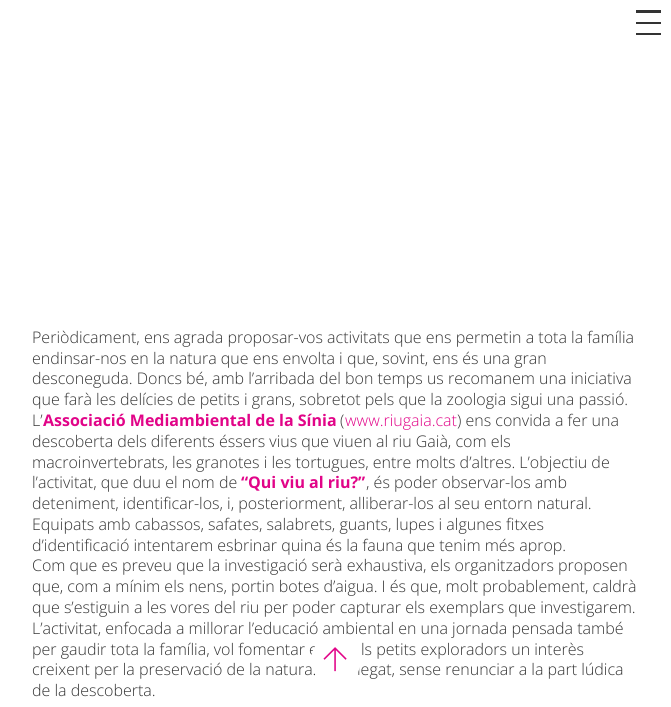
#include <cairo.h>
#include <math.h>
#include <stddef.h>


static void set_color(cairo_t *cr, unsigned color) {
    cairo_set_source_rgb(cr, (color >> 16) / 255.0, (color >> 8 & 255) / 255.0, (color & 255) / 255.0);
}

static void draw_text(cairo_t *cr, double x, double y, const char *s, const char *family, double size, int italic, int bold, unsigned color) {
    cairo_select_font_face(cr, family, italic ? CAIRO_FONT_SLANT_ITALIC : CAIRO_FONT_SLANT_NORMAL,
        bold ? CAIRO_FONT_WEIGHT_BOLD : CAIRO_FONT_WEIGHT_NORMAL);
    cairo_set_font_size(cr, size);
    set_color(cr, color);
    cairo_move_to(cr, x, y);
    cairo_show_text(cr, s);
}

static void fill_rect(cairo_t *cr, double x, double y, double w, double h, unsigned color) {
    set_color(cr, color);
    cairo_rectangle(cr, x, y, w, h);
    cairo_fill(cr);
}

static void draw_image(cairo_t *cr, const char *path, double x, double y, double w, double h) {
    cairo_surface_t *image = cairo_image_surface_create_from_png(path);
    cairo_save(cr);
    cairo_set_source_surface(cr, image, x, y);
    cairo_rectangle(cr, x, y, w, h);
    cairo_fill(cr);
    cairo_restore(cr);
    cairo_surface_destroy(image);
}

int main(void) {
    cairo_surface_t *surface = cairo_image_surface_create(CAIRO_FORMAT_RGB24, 671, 707);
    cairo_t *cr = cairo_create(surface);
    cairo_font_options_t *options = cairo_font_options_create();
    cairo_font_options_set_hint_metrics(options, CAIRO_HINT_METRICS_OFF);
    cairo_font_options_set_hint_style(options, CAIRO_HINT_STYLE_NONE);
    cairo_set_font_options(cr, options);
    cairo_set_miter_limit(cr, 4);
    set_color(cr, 0xFFFFFF);
    cairo_paint(cr);
    fill_rect(cr, 636, 10, 25, 3, 0x333333);
    fill_rect(cr, 636, 22, 25, 2, 0x333333);
    fill_rect(cr, 636, 33, 25, 2, 0x333333);
    draw_text(cr, 32, 343, "Periòdicament, ens agrada proposar-vos activitats que ens permetin a tota la família", "Open Sans Light", 16, 0, 0, 0x333333);
    draw_text(cr, 32, 364, "endinsar-nos en la natura que ens envolta i que, sovint, ens és una gran", "Open Sans Light", 16, 0, 0, 0x333333);
    draw_text(cr, 32, 384, "desconeguda. Doncs bé, amb l’arribada del bon temps us recomanem una iniciativa", "Open Sans Light", 16, 0, 0, 0x333333);
    draw_text(cr, 32, 405, "que farà les delícies de petits i grans, sobretot pels que la zoologia sigui una passió.", "Open Sans Light", 16, 0, 0, 0x333333);
    draw_text(cr, 32, 426, "L’", "Open Sans Light", 16, 0, 0, 0x333333);
    draw_text(cr, 43, 426, "Associació Mediambiental de la Sínia", "Open Sans", 16, 0, 1, 0xE10488);
    draw_text(cr, 340, 426, "(", "Open Sans Light", 16, 0, 0, 0x333333);
    draw_text(cr, 345, 426, "www.riugaia.cat", "Open Sans Light", 16, 0, 0, 0xE10488);
    draw_text(cr, 457, 426, ") ens convida a fer una", "Open Sans Light", 16, 0, 0, 0x333333);
    draw_text(cr, 32, 447, "descoberta dels diferents éssers vius que viuen al riu Gaià, com els", "Open Sans Light", 16, 0, 0, 0x333333);
    draw_text(cr, 32, 468, "macroinvertebrats, les granotes i les tortugues, entre molts d’altres. L’objectiu de", "Open Sans Light", 16, 0, 0, 0x333333);
    draw_text(cr, 32, 488, "l’activitat, que duu el nom de", "Open Sans Light", 16, 0, 0, 0x333333);
    draw_text(cr, 241, 488, "“Qui viu al riu?”", "Open Sans", 16, 0, 1, 0xE10488);
    draw_text(cr, 366, 488, ", és poder observar-los amb", "Open Sans Light", 16, 0, 0, 0x333333);
    draw_text(cr, 32, 509, "deteniment, identificar-los, i, posteriorment, alliberar-los al seu entorn natural.", "Open Sans Light", 16, 0, 0, 0x333333);
    draw_text(cr, 32, 530, "Equipats amb cabassos, safates, salabrets, guants, lupes i algunes fitxes", "Open Sans Light", 16, 0, 0, 0x333333);
    draw_text(cr, 32, 551, "d’identificació intentarem esbrinar quina és la fauna que tenim més aprop.", "Open Sans Light", 16, 0, 0, 0x333333);
    draw_text(cr, 32, 571, "Com que es preveu que la investigació serà exhaustiva, els organitzadors proposen", "Open Sans Light", 16, 0, 0, 0x333333);
    draw_text(cr, 32, 592, "que, com a mínim els nens, portin botes d’aigua. I és que, molt probablement, caldrà", "Open Sans Light", 16, 0, 0, 0x333333);
    draw_text(cr, 32, 613, "que s’estiguin a les vores del riu per poder capturar els exemplars que investigarem.", "Open Sans Light", 16, 0, 0, 0x333333);
    draw_text(cr, 32, 634, "L’activitat, enfocada a millorar l’educació ambiental en una jornada pensada també", "Open Sans Light", 16, 0, 0, 0x333333);
    draw_text(cr, 32, 655, "per gaudir tota la família, vol fomentar e", "Open Sans Light", 16, 0, 0, 0x333333);
    draw_text(cr, 361, 655, "ls petits exploradors un interès", "Open Sans Light", 16, 0, 0, 0x333333);
    draw_text(cr, 32, 675, "creixent per la preservació de la natura.", "Open Sans Light", 16, 0, 0, 0x333333);
    draw_text(cr, 357, 675, "legat, sense renunciar a la part lúdica", "Open Sans Light", 16, 0, 0, 0x333333);
    draw_text(cr, 32, 696, "de la descoberta.", "Open Sans Light", 16, 0, 0, 0x333333);
    set_color(cr, 0xFFFFFF);
    cairo_new_path(cr);
    cairo_arc(cr, 336, 660, 25, 0, 2 * M_PI);
    cairo_fill(cr);
    draw_image(cr, "assets/img1.png", 323, 647, 24, 25);
    cairo_surface_write_to_png(surface, "output.png");
    cairo_font_options_destroy(options);
    cairo_destroy(cr);
    cairo_surface_destroy(surface);
    return 0;
}
